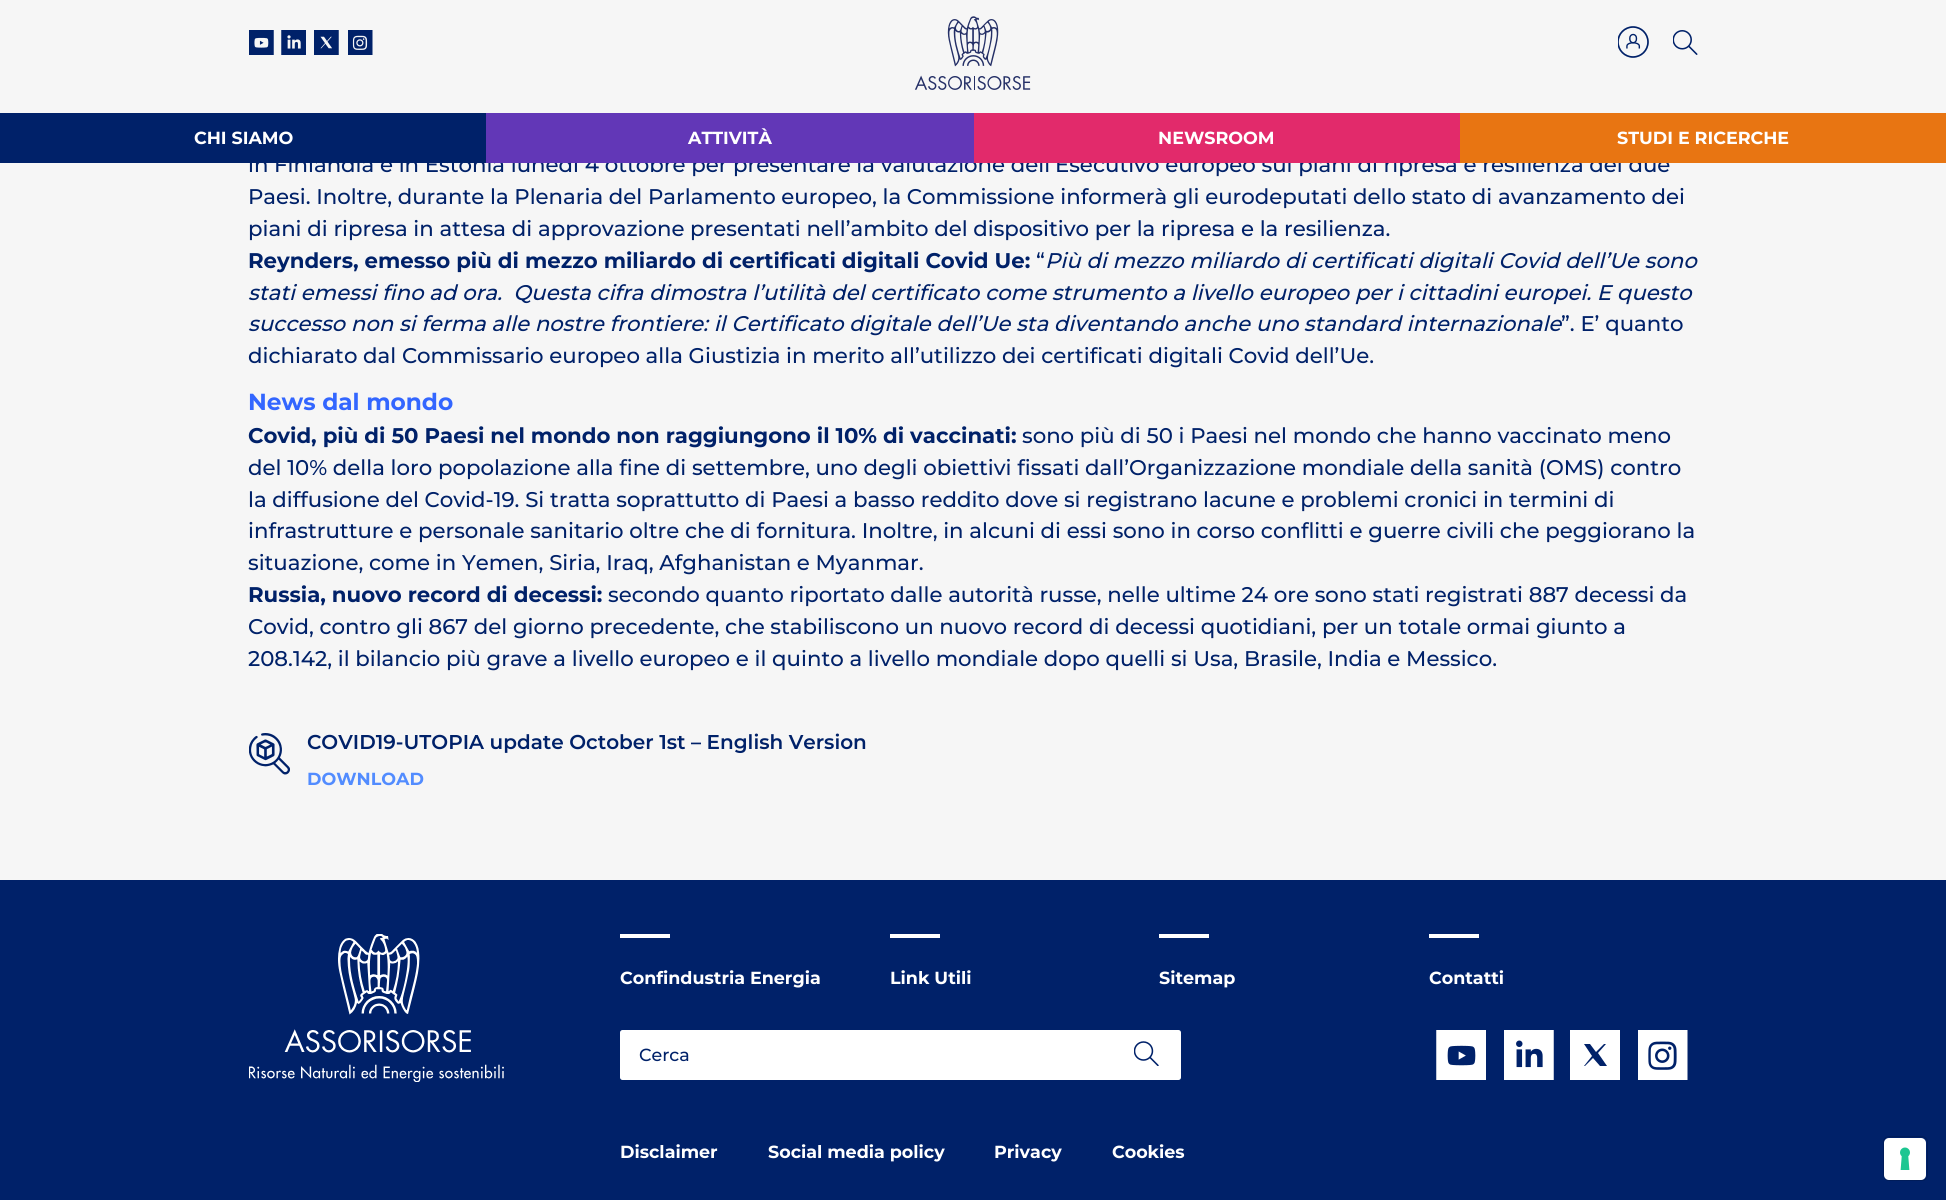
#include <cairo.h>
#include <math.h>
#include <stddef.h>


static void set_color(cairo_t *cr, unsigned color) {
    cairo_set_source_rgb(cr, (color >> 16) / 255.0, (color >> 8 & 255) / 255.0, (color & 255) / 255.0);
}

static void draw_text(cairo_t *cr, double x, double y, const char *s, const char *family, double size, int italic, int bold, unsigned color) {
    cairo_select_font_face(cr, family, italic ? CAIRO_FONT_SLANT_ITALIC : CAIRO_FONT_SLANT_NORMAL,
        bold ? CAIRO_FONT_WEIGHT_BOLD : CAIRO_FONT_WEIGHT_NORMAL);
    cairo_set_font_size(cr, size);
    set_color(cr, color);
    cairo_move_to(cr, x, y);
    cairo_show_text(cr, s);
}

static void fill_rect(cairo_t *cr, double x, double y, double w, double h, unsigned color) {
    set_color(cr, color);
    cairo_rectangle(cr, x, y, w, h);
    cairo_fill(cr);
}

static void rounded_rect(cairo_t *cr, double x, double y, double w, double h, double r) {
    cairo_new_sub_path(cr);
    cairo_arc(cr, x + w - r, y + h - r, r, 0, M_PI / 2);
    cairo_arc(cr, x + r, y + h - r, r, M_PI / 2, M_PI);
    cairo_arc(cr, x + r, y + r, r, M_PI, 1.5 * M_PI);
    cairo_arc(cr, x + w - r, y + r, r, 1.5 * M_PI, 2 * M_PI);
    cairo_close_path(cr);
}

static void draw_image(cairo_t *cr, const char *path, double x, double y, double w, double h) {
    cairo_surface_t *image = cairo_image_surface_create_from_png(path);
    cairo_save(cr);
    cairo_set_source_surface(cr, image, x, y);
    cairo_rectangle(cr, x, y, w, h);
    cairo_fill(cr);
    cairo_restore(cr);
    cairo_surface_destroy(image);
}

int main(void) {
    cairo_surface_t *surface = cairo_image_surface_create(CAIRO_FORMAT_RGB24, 1946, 1200);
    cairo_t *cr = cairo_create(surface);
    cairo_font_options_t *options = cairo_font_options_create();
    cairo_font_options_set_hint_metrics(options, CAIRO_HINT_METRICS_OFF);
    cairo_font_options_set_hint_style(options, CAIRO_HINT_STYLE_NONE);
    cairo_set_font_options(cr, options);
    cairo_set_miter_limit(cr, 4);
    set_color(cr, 0xF6F6F6);
    cairo_paint(cr);
    draw_image(cr, "assets/img1.png", 249, 30, 25, 25);
    draw_image(cr, "assets/img2.png", 281, 30, 25, 25);
    draw_image(cr, "assets/img3.png", 314, 30, 25, 25);
    draw_image(cr, "assets/img4.png", 348, 30, 25, 25);
    draw_image(cr, "assets/img5.png", 914, 16, 117, 74);
    draw_image(cr, "assets/img6.png", 1618, 26, 31, 32);
    draw_image(cr, "assets/img7.png", 1673, 30, 25, 25);
    fill_rect(cr, 0, 113, 486, 50, 0x002169);
    draw_text(cr, 194, 144, "CHI SIAMO", "Montserrat", 17.5, 0, 1, 0xFFFFFF);
    draw_text(cr, 248, 172, "in Finlandia e in Estonia lunedì 4 ottobre per presentare la valutazione dell’Esecutivo europeo sui piani di ripresa e resilienza dei due", "Montserrat Medium", 21.25, 0, 0, 0x002169);
    fill_rect(cr, 486, 113, 488, 50, 0x6237B7);
    draw_text(cr, 688, 144, "ATTIVITÀ", "Montserrat", 17.5, 0, 1, 0xFFFFFF);
    fill_rect(cr, 974, 113, 486, 50, 0xE22A6B);
    draw_text(cr, 1158, 144, "NEWSROOM", "Montserrat", 17.5, 0, 1, 0xFFFFFF);
    fill_rect(cr, 1460, 113, 486, 50, 0xE87512);
    draw_text(cr, 1617, 144, "STUDI E RICERCHE", "Montserrat", 17.5, 0, 1, 0xFFFFFF);
    draw_text(cr, 248, 204, "Paesi. Inoltre, durante la Plenaria del Parlamento europeo, la Commissione informerà gli eurodeputati dello stato di avanzamento dei", "Montserrat Medium", 21.25, 0, 0, 0x002169);
    draw_text(cr, 248, 236, "piani di ripresa in attesa di approvazione presentati nell’ambito del dispositivo per la ripresa e la resilienza.", "Montserrat Medium", 21.25, 0, 0, 0x002169);
    draw_text(cr, 248, 268, "Reynders, emesso più di mezzo miliardo di certificati digitali Covid Ue:", "Montserrat", 21.25, 0, 1, 0x002169);
    draw_text(cr, 1036, 268, "“", "Montserrat Medium", 21.25, 0, 0, 0x002169);
    draw_text(cr, 1045, 268, "Più di mezzo miliardo di certificati digitali Covid dell’Ue sono", "Montserrat Medium", 21.25, 1, 0, 0x002169);
    draw_text(cr, 248, 300, "stati emessi fino ad ora.  Questa cifra dimostra l’utilità del certificato come strumento a livello europeo per i cittadini europei. E questo", "Montserrat Medium", 21.25, 1, 0, 0x002169);
    draw_text(cr, 248, 331, "successo non si ferma alle nostre frontiere: il Certificato digitale dell’Ue sta diventando anche uno standard internazionale", "Montserrat Medium", 21.25, 1, 0, 0x002169);
    draw_text(cr, 1561, 331, "”. E’ quanto", "Montserrat Medium", 21.25, 0, 0, 0x002169);
    draw_text(cr, 248, 363, "dichiarato dal Commissario europeo alla Giustizia in merito all’utilizzo dei certificati digitali Covid dell’Ue.", "Montserrat Medium", 21.25, 0, 0, 0x002169);
    draw_text(cr, 248, 410, "News dal mondo", "Montserrat", 23.25, 0, 1, 0x3366FF);
    draw_text(cr, 248, 443, "Covid, più di 50 Paesi nel mondo non raggiungono il 10% di vaccinati:", "Montserrat", 21.25, 0, 1, 0x002169);
    draw_text(cr, 1022, 443, "sono più di 50 i Paesi nel mondo che hanno vaccinato meno", "Montserrat Medium", 21.25, 0, 0, 0x002169);
    draw_text(cr, 248, 475, "del 10% della loro popolazione alla fine di settembre, uno degli obiettivi fissati dall’Organizzazione mondiale della sanità (OMS) contro", "Montserrat Medium", 21.25, 0, 0, 0x002169);
    draw_text(cr, 248, 507, "la diffusione del Covid-19. Si tratta soprattutto di Paesi a basso reddito dove si registrano lacune e problemi cronici in termini di", "Montserrat Medium", 21.25, 0, 0, 0x002169);
    draw_text(cr, 248, 538, "infrastrutture e personale sanitario oltre che di fornitura. Inoltre, in alcuni di essi sono in corso conflitti e guerre civili che peggiorano la", "Montserrat Medium", 21.25, 0, 0, 0x002169);
    draw_text(cr, 248, 570, "situazione, come in Yemen, Siria, Iraq, Afghanistan e Myanmar.", "Montserrat Medium", 21.25, 0, 0, 0x002169);
    draw_text(cr, 248, 602, "Russia, nuovo record di decessi:", "Montserrat", 21.25, 0, 1, 0x002169);
    draw_text(cr, 608, 602, "secondo quanto riportato dalle autorità russe, nelle ultime 24 ore sono stati registrati 887 decessi da", "Montserrat Medium", 21.25, 0, 0, 0x002169);
    draw_text(cr, 248, 634, "Covid, contro gli 867 del giorno precedente, che stabiliscono un nuovo record di decessi quotidiani, per un totale ormai giunto a", "Montserrat Medium", 21.25, 0, 0, 0x002169);
    draw_text(cr, 248, 666, "208.142, il bilancio più grave a livello europeo e il quinto a livello mondiale dopo quelli si Usa, Brasile, India e Messico.", "Montserrat Medium", 21.25, 0, 0, 0x002169);
    draw_image(cr, "assets/img8.png", 249, 733, 41, 42);
    draw_text(cr, 307, 749, "COVID19-UTOPIA update October 1st – English Version", "Montserrat SemiBold", 20, 0, 0, 0x002169);
    draw_text(cr, 307, 785, "DOWNLOAD", "Montserrat", 17.5, 0, 1, 0x528CFF);
    fill_rect(cr, 0, 880, 1946, 320, 0x002169);
    draw_image(cr, "assets/img9.png", 249, 934, 255, 148);
    fill_rect(cr, 620, 934, 50, 4, 0xFFFFFF);
    draw_text(cr, 620, 984, "Confindustria Energia", "Montserrat", 17.5, 0, 1, 0xFFFFFF);
    fill_rect(cr, 890, 934, 50, 4, 0xFFFFFF);
    draw_text(cr, 890, 984, "Link Utili", "Montserrat", 17.5, 0, 1, 0xFFFFFF);
    fill_rect(cr, 1159, 934, 50, 4, 0xFFFFFF);
    draw_text(cr, 1159, 984, "Sitemap", "Montserrat", 17.5, 0, 1, 0xFFFFFF);
    fill_rect(cr, 1429, 934, 50, 4, 0xFFFFFF);
    draw_text(cr, 1429, 984, "Contatti", "Montserrat", 17.5, 0, 1, 0xFFFFFF);
    rounded_rect(cr, 620, 1030, 561, 50, 2.5);
    cairo_fill(cr);
    draw_text(cr, 639, 1061, "Cerca", "Montserrat Medium", 17.5, 0, 0, 0x002169);
    draw_image(cr, "assets/img10.png", 1134, 1041, 25, 25);
    draw_image(cr, "assets/img11.png", 1436, 1030, 50, 50);
    draw_image(cr, "assets/img12.png", 1504, 1030, 50, 50);
    set_color(cr, 0xFFFFFF);
    cairo_new_path(cr);
    cairo_move_to(cr, 1570, 1030);
    cairo_line_to(cr, 1570, 1080);
    cairo_line_to(cr, 1620, 1080);
    cairo_line_to(cr, 1620, 1030);
    cairo_close_path(cr);
    cairo_move_to(cr, 1600, 1066);
    cairo_line_to(cr, 1593, 1058);
    cairo_line_to(cr, 1585, 1066);
    cairo_line_to(cr, 1584, 1066);
    cairo_line_to(cr, 1592, 1056);
    cairo_line_to(cr, 1584, 1044);
    cairo_line_to(cr, 1590, 1044);
    cairo_line_to(cr, 1596, 1052);
    cairo_line_to(cr, 1604, 1044);
    cairo_line_to(cr, 1606, 1044);
    cairo_line_to(cr, 1598, 1053);
    cairo_line_to(cr, 1607, 1066);
    cairo_close_path(cr);
    cairo_fill(cr);
    draw_image(cr, "assets/img13.png", 1638, 1030, 50, 50);
    draw_text(cr, 620, 1158, "Disclaimer", "Montserrat", 17.5, 0, 1, 0xFFFFFF);
    draw_text(cr, 768, 1158, "Social media policy", "Montserrat", 17.5, 0, 1, 0xFFFFFF);
    draw_text(cr, 994, 1158, "Privacy", "Montserrat", 17.5, 0, 1, 0xFFFFFF);
    draw_text(cr, 1112, 1158, "Cookies", "Montserrat", 17.5, 0, 1, 0xFFFFFF);
    rounded_rect(cr, 1883.5, 1136.5, 44, 44, 5.5);
    set_color(cr, 0x001C59);
    cairo_set_line_width(cr, 1);
    cairo_stroke(cr);
    set_color(cr, 0xFFFFFF);
    rounded_rect(cr, 1884, 1138, 42, 42, 5);
    cairo_fill(cr);
    draw_image(cr, "assets/img14.png", 1900, 1147, 10, 23);
    cairo_surface_write_to_png(surface, "output.png");
    cairo_font_options_destroy(options);
    cairo_destroy(cr);
    cairo_surface_destroy(surface);
    return 0;
}
